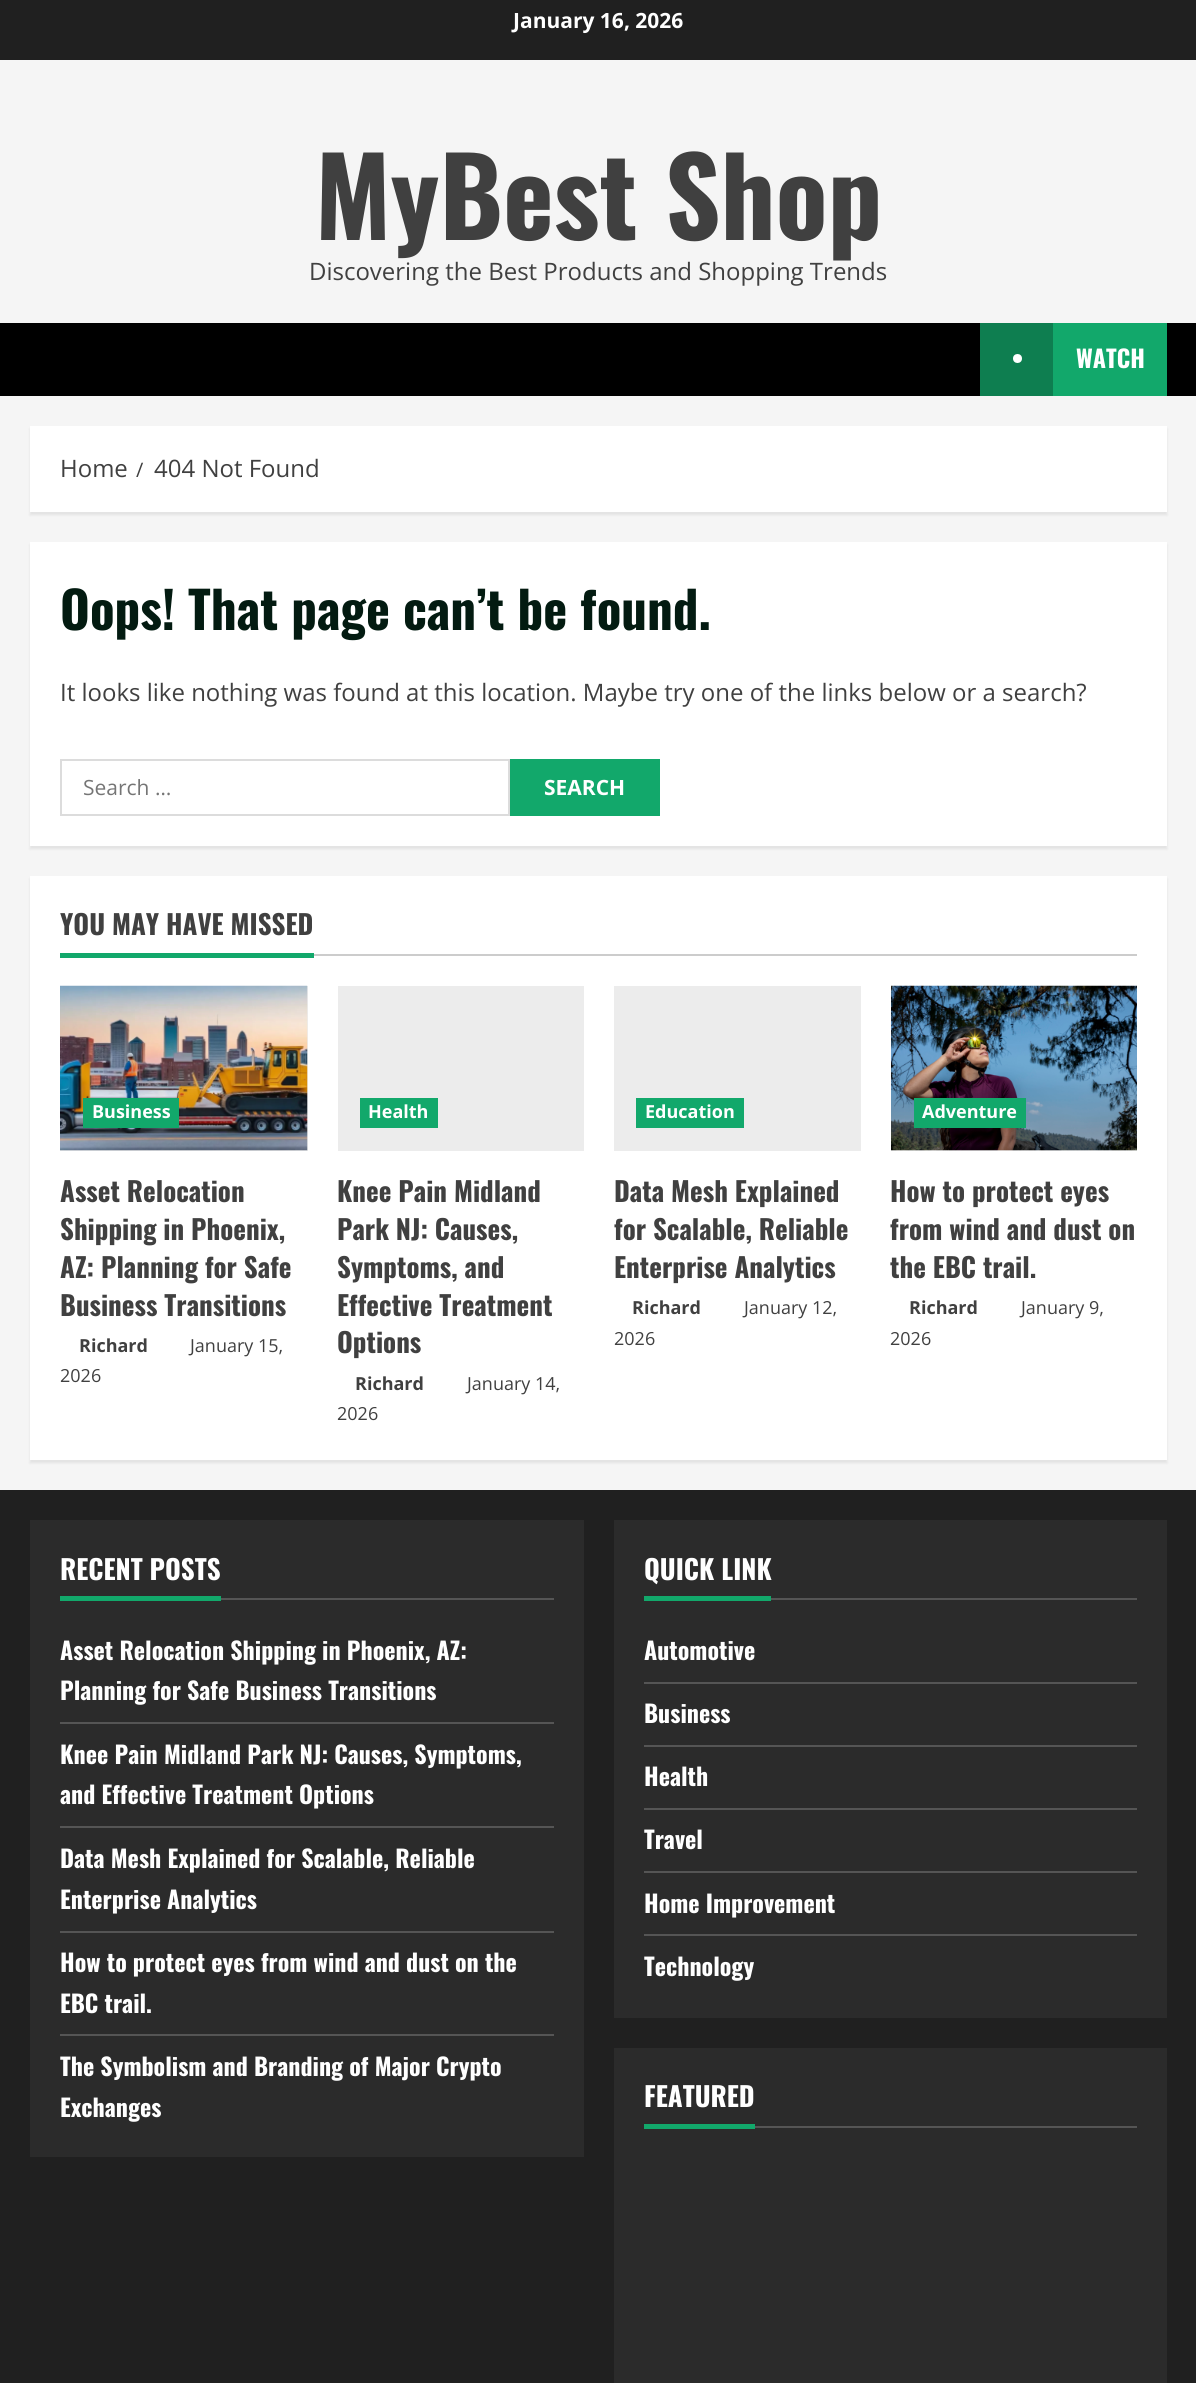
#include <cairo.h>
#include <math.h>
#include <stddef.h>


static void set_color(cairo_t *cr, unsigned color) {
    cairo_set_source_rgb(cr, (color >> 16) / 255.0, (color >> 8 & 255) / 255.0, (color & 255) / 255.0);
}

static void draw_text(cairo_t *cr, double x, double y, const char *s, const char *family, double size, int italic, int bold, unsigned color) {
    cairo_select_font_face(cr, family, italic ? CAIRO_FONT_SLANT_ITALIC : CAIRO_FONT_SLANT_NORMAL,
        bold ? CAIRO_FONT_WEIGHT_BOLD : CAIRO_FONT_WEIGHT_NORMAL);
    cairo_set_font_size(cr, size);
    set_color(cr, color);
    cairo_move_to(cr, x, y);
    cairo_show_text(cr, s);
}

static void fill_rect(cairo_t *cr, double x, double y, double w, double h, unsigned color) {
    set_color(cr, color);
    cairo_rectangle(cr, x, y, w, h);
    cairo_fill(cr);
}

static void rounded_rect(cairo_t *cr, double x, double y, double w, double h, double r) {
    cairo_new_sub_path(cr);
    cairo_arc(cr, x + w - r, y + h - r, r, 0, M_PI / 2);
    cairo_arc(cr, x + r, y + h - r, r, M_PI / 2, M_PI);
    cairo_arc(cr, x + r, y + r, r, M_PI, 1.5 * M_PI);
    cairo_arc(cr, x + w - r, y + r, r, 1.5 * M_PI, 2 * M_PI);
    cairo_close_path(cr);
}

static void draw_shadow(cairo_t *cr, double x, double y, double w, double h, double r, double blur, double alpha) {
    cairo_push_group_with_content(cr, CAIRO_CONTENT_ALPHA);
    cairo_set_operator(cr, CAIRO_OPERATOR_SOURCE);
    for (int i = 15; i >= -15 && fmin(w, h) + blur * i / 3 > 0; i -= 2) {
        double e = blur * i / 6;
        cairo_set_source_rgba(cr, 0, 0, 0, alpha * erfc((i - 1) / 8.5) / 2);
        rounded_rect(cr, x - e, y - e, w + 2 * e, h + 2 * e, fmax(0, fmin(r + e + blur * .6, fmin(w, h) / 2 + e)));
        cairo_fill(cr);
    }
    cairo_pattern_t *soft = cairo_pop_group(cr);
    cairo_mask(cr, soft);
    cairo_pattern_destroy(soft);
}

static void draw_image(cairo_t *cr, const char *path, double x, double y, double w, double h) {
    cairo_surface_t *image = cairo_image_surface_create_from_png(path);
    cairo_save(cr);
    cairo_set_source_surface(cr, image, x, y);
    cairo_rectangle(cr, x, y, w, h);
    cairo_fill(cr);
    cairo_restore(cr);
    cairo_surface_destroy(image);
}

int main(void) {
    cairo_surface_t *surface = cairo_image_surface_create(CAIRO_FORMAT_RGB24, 1196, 2383);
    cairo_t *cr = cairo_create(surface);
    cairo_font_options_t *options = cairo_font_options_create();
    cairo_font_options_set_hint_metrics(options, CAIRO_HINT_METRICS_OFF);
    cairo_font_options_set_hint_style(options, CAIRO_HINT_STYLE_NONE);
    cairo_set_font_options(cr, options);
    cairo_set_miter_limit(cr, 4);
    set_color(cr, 0xF5F5F5);
    cairo_paint(cr);
    fill_rect(cr, 0, 0, 1196, 60, 0x202020);
    draw_text(cr, 513, 28, "January 16, 2026", "Open Sans", 21, 0, 1, 0xFFFFFF);
    draw_text(cr, 315, 240, "MyBest Shop", "Oswald", 108, 0, 1, 0x404040);
    draw_text(cr, 309, 280, "Discovering the Best Products and Shopping Trends", "Open Sans", 24, 0, 0, 0x404040);
    fill_rect(cr, 0, 323, 1196, 73, 0x000000);
    fill_rect(cr, 1053, 323, 114, 73, 0x12A86B);
    fill_rect(cr, 980, 323, 73, 73, 0x0E7E50);
    set_color(cr, 0xFFFFFF);
    cairo_new_path(cr);
    cairo_arc(cr, 1017.5, 358.5, 4.5, 0, 2 * M_PI);
    cairo_fill(cr);
    draw_text(cr, 1076, 368, "WATCH", "Oswald", 24, 0, 1, 0xFFFFFF);
    set_color(cr, 0x000000);
    draw_shadow(cr, 30, 429, 1137, 86, 0, 1.5, 0.08);
    fill_rect(cr, 30, 426, 1137, 86, 0xFFFFFF);
    draw_text(cr, 60, 477, "Home", "Open Sans", 24, 0, 0, 0x404040);
    draw_text(cr, 136, 477, "/", "Open Sans", 20, 0, 0, 0x404040);
    draw_text(cr, 154, 477, "404 Not Found", "Open Sans", 24, 0, 0, 0x404040);
    set_color(cr, 0x000000);
    draw_shadow(cr, 30, 545, 1137, 304, 0, 1.5, 0.08);
    fill_rect(cr, 30, 542, 1137, 304, 0xFFFFFF);
    draw_text(cr, 60, 630, "Oops! That page can’t be found.", "Oswald", 51, 0, 1, 0x031B11);
    draw_text(cr, 60, 701, "It looks like nothing was found at this location. Maybe try one of the links below or a search?", "Open Sans", 24, 0, 0, 0x404040);
    cairo_rectangle(cr, 61, 760, 448, 55);
    set_color(cr, 0xDCDCDC);
    cairo_stroke(cr);
    draw_text(cr, 83, 795, "Search …", "Open Sans", 21, 0, 0, 0x757575);
    fill_rect(cr, 510, 759, 150, 57, 0x12A86B);
    draw_text(cr, 544, 795, "SEARCH", "Open Sans", 21, 0, 1, 0xFFFFFF);
    set_color(cr, 0x000000);
    draw_shadow(cr, 30, 879, 1137, 584, 0, 1.5, 0.08);
    fill_rect(cr, 30, 876, 1137, 584, 0xFFFFFF);
    fill_rect(cr, 314, 954, 823, 2, 0xCCCCCC);
    draw_text(cr, 60, 935, "YOU MAY HAVE MISSED", "Oswald", 27, 0, 1, 0x404040);
    fill_rect(cr, 60, 953, 254, 5, 0x12A86B);
    fill_rect(cr, 60, 986, 248, 165, 0xECECEC);
    draw_image(cr, "assets/img1.png", 60, 985, 248, 166);
    fill_rect(cr, 83, 1098, 96, 30, 0x12A86B);
    draw_text(cr, 92, 1118, "Business", "Open Sans", 18, 0, 1, 0xFFFFFF);
    draw_text(cr, 60, 1202, "Asset Relocation", "Oswald", 27, 0, 1, 0x404040);
    draw_text(cr, 60, 1240, "Shipping in Phoenix,", "Oswald", 27, 0, 1, 0x404040);
    draw_text(cr, 60, 1278, "AZ: Planning for Safe", "Oswald", 27, 0, 1, 0x404040);
    draw_text(cr, 60, 1316, "Business Transitions", "Oswald", 27, 0, 1, 0x404040);
    draw_text(cr, 79, 1352, "Richard", "Open Sans", 18, 0, 1, 0x404040);
    draw_text(cr, 190, 1352, "January 15,", "Open Sans", 18, 0, 0, 0x404040);
    draw_text(cr, 60, 1382, "2026", "Open Sans", 18, 0, 0, 0x404040);
    fill_rect(cr, 338, 986, 246, 165, 0xECECEC);
    fill_rect(cr, 360, 1098, 78, 30, 0x12A86B);
    draw_text(cr, 368, 1118, "Health", "Open Sans", 18, 0, 1, 0xFFFFFF);
    draw_text(cr, 337, 1202, "Knee Pain Midland", "Oswald", 27, 0, 1, 0x404040);
    draw_text(cr, 337, 1240, "Park NJ: Causes,", "Oswald", 27, 0, 1, 0x404040);
    draw_text(cr, 337, 1278, "Symptoms, and", "Oswald", 27, 0, 1, 0x404040);
    draw_text(cr, 337, 1316, "Effective Treatment", "Oswald", 27, 0, 1, 0x404040);
    draw_text(cr, 337, 1353, "Options", "Oswald", 27, 0, 1, 0x404040);
    draw_text(cr, 355, 1390, "Richard", "Open Sans", 18, 0, 1, 0x404040);
    draw_text(cr, 467, 1390, "January 14,", "Open Sans", 18, 0, 0, 0x404040);
    draw_text(cr, 337, 1420, "2026", "Open Sans", 18, 0, 0, 0x404040);
    fill_rect(cr, 614, 986, 247, 165, 0xECECEC);
    fill_rect(cr, 636, 1098, 108, 30, 0x12A86B);
    draw_text(cr, 645, 1118, "Education", "Open Sans", 18, 0, 1, 0xFFFFFF);
    draw_text(cr, 614, 1202, "Data Mesh Explained", "Oswald", 27, 0, 1, 0x404040);
    draw_text(cr, 614, 1240, "for Scalable, Reliable", "Oswald", 27, 0, 1, 0x404040);
    draw_text(cr, 614, 1278, "Enterprise Analytics", "Oswald", 27, 0, 1, 0x404040);
    draw_text(cr, 632, 1314, "Richard", "Open Sans", 18, 0, 1, 0x404040);
    draw_text(cr, 744, 1314, "January 12,", "Open Sans", 18, 0, 0, 0x404040);
    draw_text(cr, 614, 1345, "2026", "Open Sans", 18, 0, 0, 0x404040);
    fill_rect(cr, 891, 1150, 246, 1, 0xECECEC);
    draw_image(cr, "assets/img2.png", 891, 985, 246, 166);
    fill_rect(cr, 914, 1098, 112, 30, 0x12A86B);
    draw_text(cr, 922, 1118, "Adventure", "Open Sans", 18, 0, 1, 0xFFFFFF);
    draw_text(cr, 890, 1202, "How to protect eyes", "Oswald", 27, 0, 1, 0x404040);
    draw_text(cr, 890, 1240, "from wind and dust on", "Oswald", 27, 0, 1, 0x404040);
    draw_text(cr, 890, 1278, "the EBC trail.", "Oswald", 27, 0, 1, 0x404040);
    draw_text(cr, 909, 1314, "Richard", "Open Sans", 18, 0, 1, 0x404040);
    draw_text(cr, 1021, 1314, "January 9,", "Open Sans", 18, 0, 0, 0x404040);
    draw_text(cr, 890, 1345, "2026", "Open Sans", 18, 0, 0, 0x404040);
    fill_rect(cr, 0, 1490, 1196, 893, 0x202020);
    fill_rect(cr, 30, 1520, 554, 637, 0x2B2B2B);
    fill_rect(cr, 221, 1598, 333, 2, 0x555555);
    draw_text(cr, 60, 1580, "RECENT POSTS", "Oswald", 27, 0, 1, 0xFFFFFF);
    fill_rect(cr, 60, 1596, 161, 5, 0x12A86B);
    fill_rect(cr, 60, 1722, 494, 2, 0x555555);
    draw_text(cr, 60, 1660, "Asset Relocation Shipping in Phoenix, AZ:", "Oswald", 24, 0, 1, 0xFFFFFF);
    draw_text(cr, 60, 1700, "Planning for Safe Business Transitions", "Oswald", 24, 0, 1, 0xFFFFFF);
    fill_rect(cr, 60, 1826, 494, 2, 0x555555);
    draw_text(cr, 60, 1764, "Knee Pain Midland Park NJ: Causes, Symptoms,", "Oswald", 24, 0, 1, 0xFFFFFF);
    draw_text(cr, 60, 1804, "and Effective Treatment Options", "Oswald", 24, 0, 1, 0xFFFFFF);
    fill_rect(cr, 60, 1931, 494, 2, 0x555555);
    draw_text(cr, 60, 1868, "Data Mesh Explained for Scalable, Reliable", "Oswald", 24, 0, 1, 0xFFFFFF);
    draw_text(cr, 60, 1909, "Enterprise Analytics", "Oswald", 24, 0, 1, 0xFFFFFF);
    fill_rect(cr, 60, 2034, 494, 2, 0x555555);
    draw_text(cr, 60, 1972, "How to protect eyes from wind and dust on the", "Oswald", 24, 0, 1, 0xFFFFFF);
    draw_text(cr, 60, 2013, "EBC trail.", "Oswald", 24, 0, 1, 0xFFFFFF);
    draw_text(cr, 60, 2076, "The Symbolism and Branding of Major Crypto", "Oswald", 24, 0, 1, 0xFFFFFF);
    draw_text(cr, 60, 2117, "Exchanges", "Oswald", 24, 0, 1, 0xFFFFFF);
    fill_rect(cr, 614, 1520, 553, 498, 0x2B2B2B);
    fill_rect(cr, 771, 1598, 366, 2, 0x555555);
    draw_text(cr, 644, 1580, "QUICK LINK", "Oswald", 27, 0, 1, 0xFFFFFF);
    fill_rect(cr, 644, 1596, 127, 5, 0x12A86B);
    fill_rect(cr, 644, 1682, 493, 2, 0x555555);
    draw_text(cr, 644, 1660, "Automotive", "Oswald", 24, 0, 1, 0xFFFFFF);
    fill_rect(cr, 644, 1745, 493, 2, 0x555555);
    draw_text(cr, 644, 1723, "Business", "Oswald", 24, 0, 1, 0xFFFFFF);
    fill_rect(cr, 644, 1808, 493, 2, 0x555555);
    draw_text(cr, 644, 1786, "Health", "Oswald", 24, 0, 1, 0xFFFFFF);
    fill_rect(cr, 644, 1871, 493, 2, 0x555555);
    draw_text(cr, 644, 1849, "Travel", "Oswald", 24, 0, 1, 0xFFFFFF);
    fill_rect(cr, 644, 1934, 493, 2, 0x555555);
    draw_text(cr, 644, 1913, "Home Improvement", "Oswald", 24, 0, 1, 0xFFFFFF);
    draw_text(cr, 644, 1976, "Technology", "Oswald", 24, 0, 1, 0xFFFFFF);
    fill_rect(cr, 614, 2048, 553, 335, 0x2B2B2B);
    fill_rect(cr, 755, 2126, 382, 2, 0x555555);
    draw_text(cr, 644, 2107, "FEATURED", "Oswald", 27, 0, 1, 0xFFFFFF);
    fill_rect(cr, 644, 2124, 111, 5, 0x12A86B);
    cairo_surface_write_to_png(surface, "output.png");
    cairo_font_options_destroy(options);
    cairo_destroy(cr);
    cairo_surface_destroy(surface);
    return 0;
}
